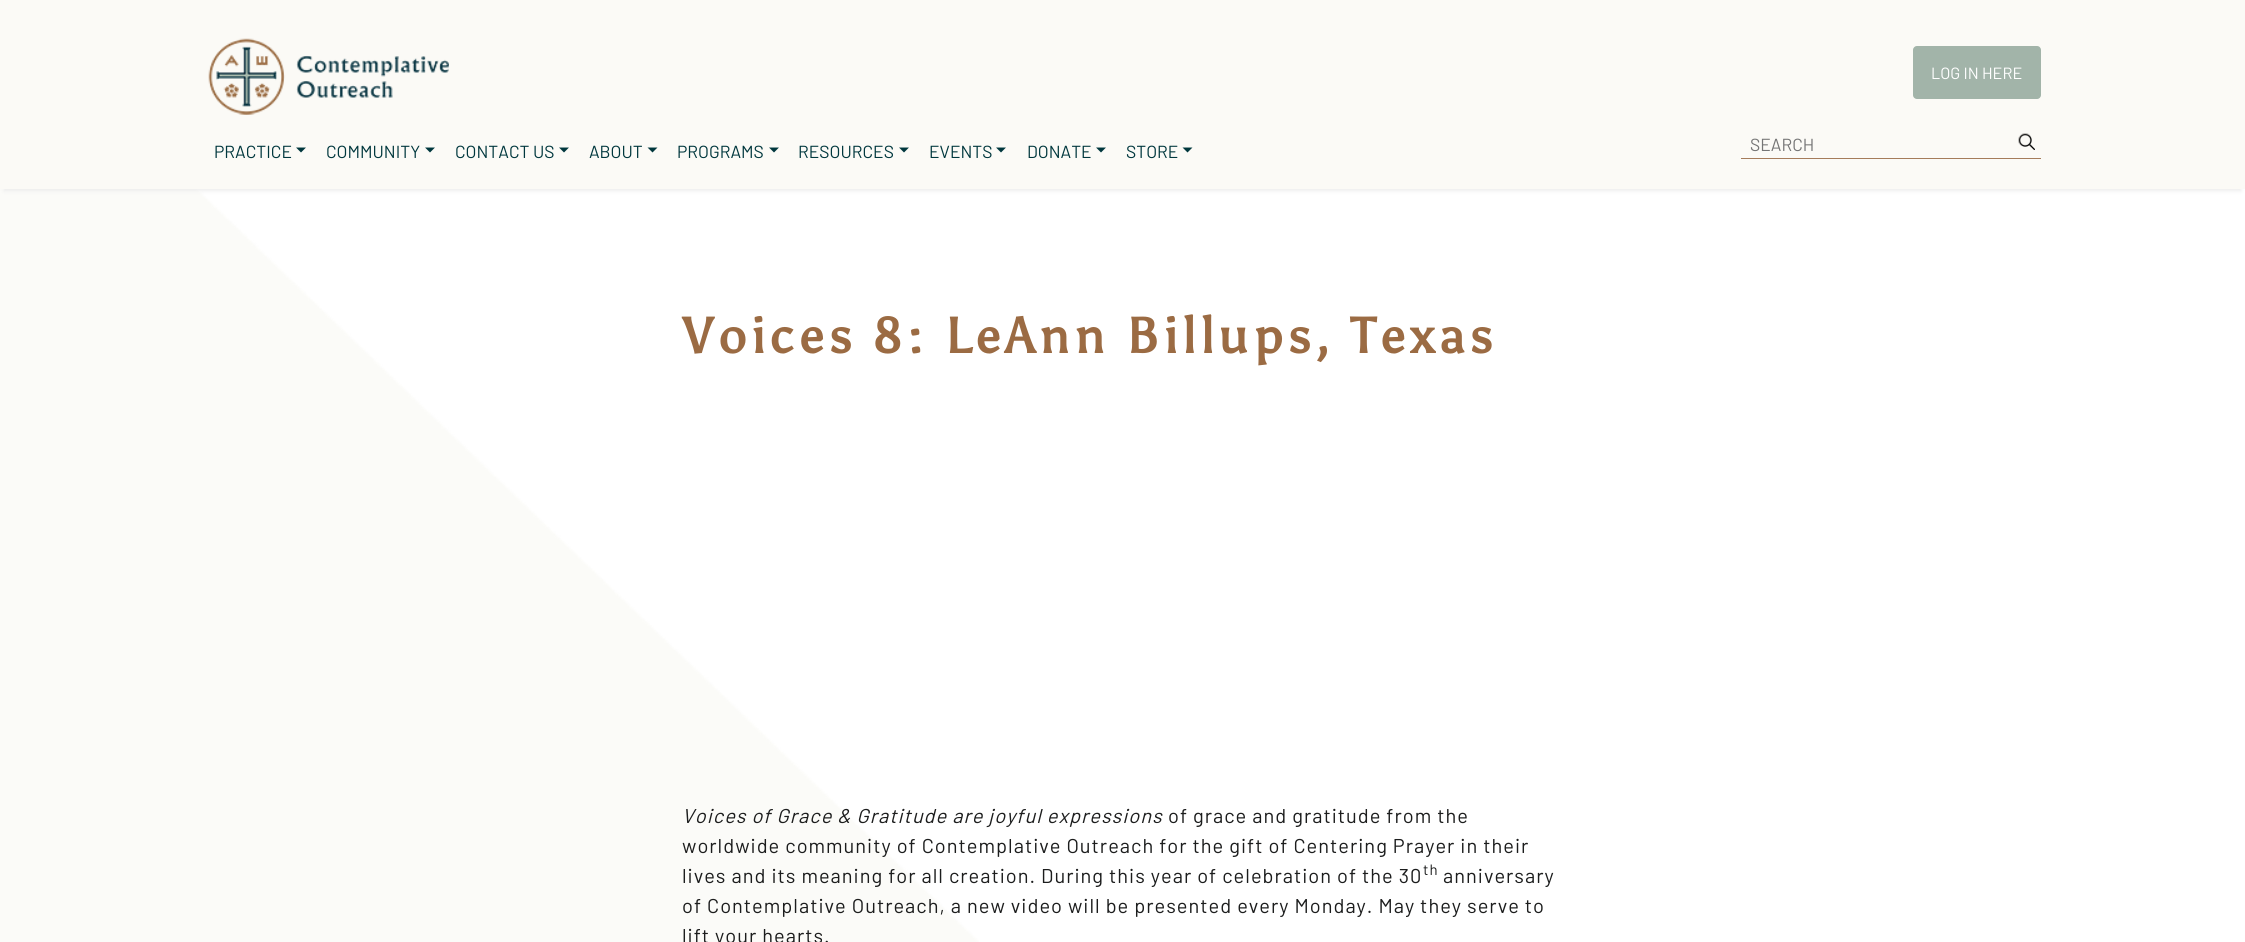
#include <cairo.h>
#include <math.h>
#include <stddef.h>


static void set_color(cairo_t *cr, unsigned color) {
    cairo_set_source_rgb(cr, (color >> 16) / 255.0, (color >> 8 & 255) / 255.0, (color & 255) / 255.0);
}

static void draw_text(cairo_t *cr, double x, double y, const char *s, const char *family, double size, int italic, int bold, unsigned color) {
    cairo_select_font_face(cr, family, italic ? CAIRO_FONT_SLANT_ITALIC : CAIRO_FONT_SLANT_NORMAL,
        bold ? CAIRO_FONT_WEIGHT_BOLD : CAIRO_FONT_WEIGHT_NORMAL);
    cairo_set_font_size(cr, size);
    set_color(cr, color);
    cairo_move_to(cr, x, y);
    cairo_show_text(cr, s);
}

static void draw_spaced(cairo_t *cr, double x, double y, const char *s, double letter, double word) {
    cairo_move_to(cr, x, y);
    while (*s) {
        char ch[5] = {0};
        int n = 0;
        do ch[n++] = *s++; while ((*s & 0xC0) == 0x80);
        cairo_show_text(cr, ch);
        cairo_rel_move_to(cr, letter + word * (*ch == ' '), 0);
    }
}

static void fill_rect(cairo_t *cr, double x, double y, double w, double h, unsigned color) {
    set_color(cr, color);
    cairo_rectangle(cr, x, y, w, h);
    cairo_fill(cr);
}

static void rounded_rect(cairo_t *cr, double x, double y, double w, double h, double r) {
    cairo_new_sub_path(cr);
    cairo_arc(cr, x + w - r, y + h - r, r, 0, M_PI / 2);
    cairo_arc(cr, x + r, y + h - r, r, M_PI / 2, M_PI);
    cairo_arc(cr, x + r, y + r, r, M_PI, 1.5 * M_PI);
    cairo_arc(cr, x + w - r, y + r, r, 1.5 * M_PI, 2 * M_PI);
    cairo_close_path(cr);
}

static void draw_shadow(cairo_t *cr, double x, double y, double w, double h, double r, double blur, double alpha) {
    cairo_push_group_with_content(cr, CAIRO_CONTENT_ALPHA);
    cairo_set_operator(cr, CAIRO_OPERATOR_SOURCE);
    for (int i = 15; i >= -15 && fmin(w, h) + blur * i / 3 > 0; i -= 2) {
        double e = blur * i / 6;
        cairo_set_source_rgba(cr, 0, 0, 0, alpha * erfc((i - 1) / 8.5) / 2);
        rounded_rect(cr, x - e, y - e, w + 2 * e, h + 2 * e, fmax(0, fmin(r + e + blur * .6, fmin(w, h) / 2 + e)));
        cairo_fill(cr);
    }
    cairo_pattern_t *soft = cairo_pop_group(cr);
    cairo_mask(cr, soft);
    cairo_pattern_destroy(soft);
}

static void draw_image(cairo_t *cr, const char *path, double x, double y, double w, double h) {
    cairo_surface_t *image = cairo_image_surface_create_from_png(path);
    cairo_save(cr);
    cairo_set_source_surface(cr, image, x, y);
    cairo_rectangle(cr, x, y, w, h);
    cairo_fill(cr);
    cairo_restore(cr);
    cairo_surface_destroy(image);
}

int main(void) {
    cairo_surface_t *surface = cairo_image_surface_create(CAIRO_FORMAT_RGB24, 2245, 942);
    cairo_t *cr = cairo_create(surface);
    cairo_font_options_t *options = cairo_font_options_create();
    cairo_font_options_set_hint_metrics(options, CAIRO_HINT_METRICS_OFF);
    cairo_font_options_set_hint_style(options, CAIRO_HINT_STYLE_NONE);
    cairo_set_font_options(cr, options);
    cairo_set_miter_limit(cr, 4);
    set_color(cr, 0xFFFFFF);
    cairo_paint(cr);
    draw_image(cr, "assets/img1.png", 0, 189, 979, 753);
    set_color(cr, 0xEDEDED);
    draw_shadow(cr, 4, 10, 2237, 181, 0, 2, 1);
    fill_rect(cr, 0, 0, 2245, 189, 0xFBFAF6);
    draw_image(cr, "assets/img2.png", 208, 38, 241, 77);
    set_color(cr, 0xA2B4A9);
    rounded_rect(cr, 1913, 46, 128, 53, 4);
    cairo_fill(cr);
    draw_text(cr, 1931, 79, "LOG IN HERE", "Barlow", 16.25, 0, 0, 0xFFFFFF);
    draw_text(cr, 214, 158, "PRACTICE", "Barlow", 17.5, 0, 0, 0x00373D);
    cairo_new_path(cr);
    cairo_move_to(cr, 296, 147.5);
    cairo_line_to(cr, 306, 147.5);
    cairo_line_to(cr, 301, 152.5);
    cairo_close_path(cr);
    cairo_fill(cr);
    draw_text(cr, 326, 158, "COMMUNITY", "Barlow", 17.5, 0, 0, 0x00373D);
    cairo_new_path(cr);
    cairo_move_to(cr, 425, 147.5);
    cairo_line_to(cr, 435, 147.5);
    cairo_line_to(cr, 430, 152.5);
    cairo_close_path(cr);
    cairo_fill(cr);
    draw_text(cr, 455, 158, "CONTACT US", "Barlow", 17.5, 0, 0, 0x00373D);
    cairo_new_path(cr);
    cairo_move_to(cr, 559, 147.5);
    cairo_line_to(cr, 569, 147.5);
    cairo_line_to(cr, 564, 152.5);
    cairo_close_path(cr);
    cairo_fill(cr);
    draw_text(cr, 589, 158, "ABOUT", "Barlow", 17.5, 0, 0, 0x00373D);
    cairo_new_path(cr);
    cairo_move_to(cr, 647.5, 147.5);
    cairo_line_to(cr, 657.5, 147.5);
    cairo_line_to(cr, 652.5, 152.5);
    cairo_close_path(cr);
    cairo_fill(cr);
    draw_text(cr, 677, 158, "PROGRAMS", "Barlow", 17.5, 0, 0, 0x00373D);
    cairo_new_path(cr);
    cairo_move_to(cr, 769, 147.5);
    cairo_line_to(cr, 779, 147.5);
    cairo_line_to(cr, 774, 152.5);
    cairo_close_path(cr);
    cairo_fill(cr);
    draw_text(cr, 798, 158, "RESOURCES", "Barlow", 17.5, 0, 0, 0x00373D);
    cairo_new_path(cr);
    cairo_move_to(cr, 899, 147.5);
    cairo_line_to(cr, 909, 147.5);
    cairo_line_to(cr, 904, 152.5);
    cairo_close_path(cr);
    cairo_fill(cr);
    draw_text(cr, 929, 158, "EVENTS", "Barlow", 17.5, 0, 0, 0x00373D);
    cairo_new_path(cr);
    cairo_move_to(cr, 996, 147.5);
    cairo_line_to(cr, 1006, 147.5);
    cairo_line_to(cr, 1001, 152.5);
    cairo_close_path(cr);
    cairo_fill(cr);
    draw_text(cr, 1027, 158, "DONATE", "Barlow", 17.5, 0, 0, 0x00373D);
    cairo_new_path(cr);
    cairo_move_to(cr, 1096, 147.5);
    cairo_line_to(cr, 1106, 147.5);
    cairo_line_to(cr, 1101, 152.5);
    cairo_close_path(cr);
    cairo_fill(cr);
    draw_text(cr, 1126, 158, "STORE", "Barlow", 17.5, 0, 0, 0x00373D);
    cairo_new_path(cr);
    cairo_move_to(cr, 1182.5, 147.5);
    cairo_line_to(cr, 1192.5, 147.5);
    cairo_line_to(cr, 1187.5, 152.5);
    cairo_close_path(cr);
    cairo_fill(cr);
    draw_image(cr, "assets/img3.png", 2018, 133, 17, 17);
    fill_rect(cr, 1741, 158, 300, 1, 0xA57C5B);
    draw_text(cr, 1750, 151, "SEARCH", "Barlow", 17.5, 0, 0, 0x757575);
    cairo_select_font_face(cr, "Asul", CAIRO_FONT_SLANT_NORMAL, CAIRO_FONT_WEIGHT_BOLD);
    cairo_set_font_size(cr, 50);
    set_color(cr, 0x9B6B43);
    draw_spaced(cr, 682, 353, "Voices 8: LeAnn Billups, Texas", 5, 0);
    cairo_select_font_face(cr, "Barlow", CAIRO_FONT_SLANT_ITALIC, CAIRO_FONT_WEIGHT_NORMAL);
    cairo_set_font_size(cr, 20);
    set_color(cr, 0x1C1D1D);
    draw_spaced(cr, 682, 823, "Voices of Grace & Gratitude are joyful expressions", 1, 0);
    cairo_select_font_face(cr, "Barlow", CAIRO_FONT_SLANT_NORMAL, CAIRO_FONT_WEIGHT_NORMAL);
    draw_spaced(cr, 1168, 823, "of grace and gratitude from the", 1, 0);
    draw_spaced(cr, 682, 853, "worldwide community of Contemplative Outreach for the gift of Centering Prayer in their", 1, 0);
    draw_spaced(cr, 682, 883, "lives and its meaning for all creation. During this year of celebration of the 30", 1, 0);
    cairo_set_font_size(cr, 15);
    draw_spaced(cr, 1423, 875, "th", 1, 0);
    cairo_set_font_size(cr, 20);
    draw_spaced(cr, 1443, 883, "anniversary", 1, 0);
    draw_spaced(cr, 682, 913, "of Contemplative Outreach, a new video will be presented every Monday. May they serve to", 1, 0);
    draw_spaced(cr, 682, 943, "lift your hearts.", 1, 0);
    cairo_surface_write_to_png(surface, "output.png");
    cairo_font_options_destroy(options);
    cairo_destroy(cr);
    cairo_surface_destroy(surface);
    return 0;
}
